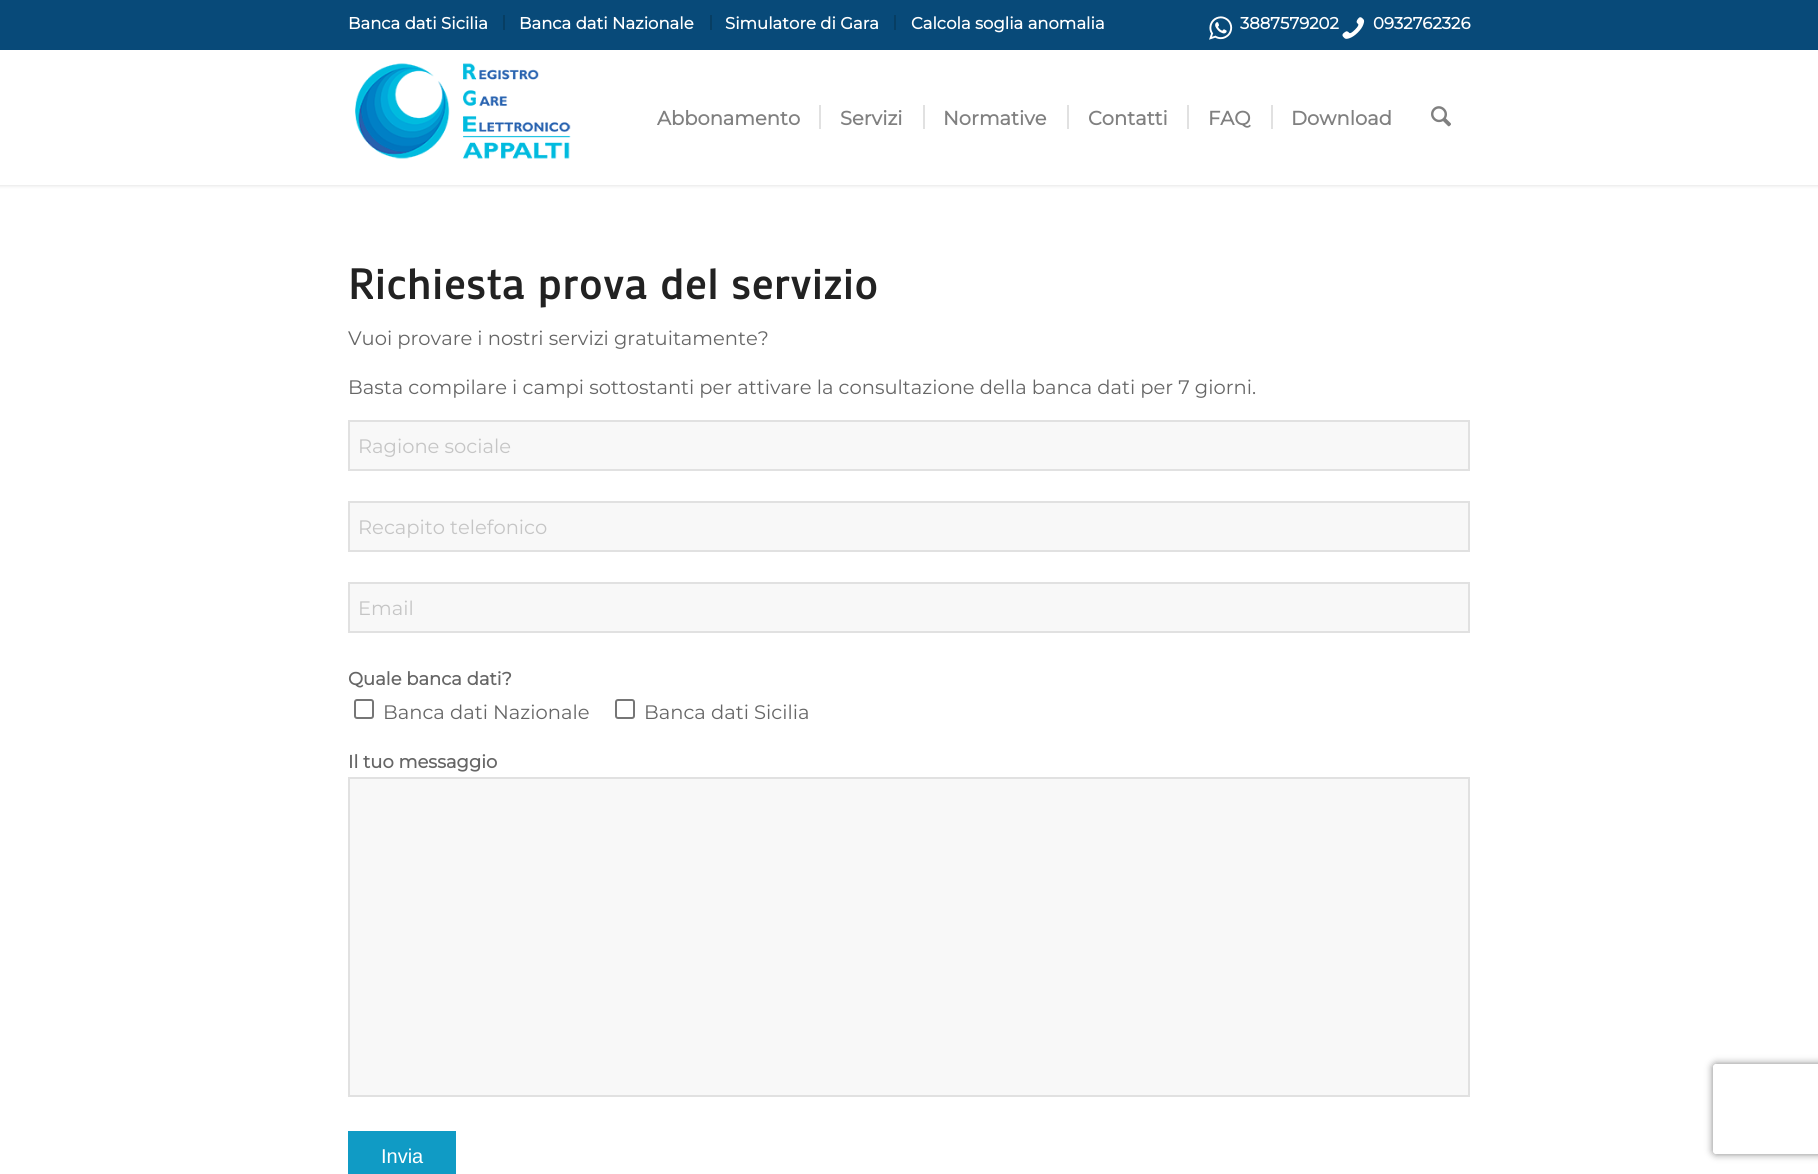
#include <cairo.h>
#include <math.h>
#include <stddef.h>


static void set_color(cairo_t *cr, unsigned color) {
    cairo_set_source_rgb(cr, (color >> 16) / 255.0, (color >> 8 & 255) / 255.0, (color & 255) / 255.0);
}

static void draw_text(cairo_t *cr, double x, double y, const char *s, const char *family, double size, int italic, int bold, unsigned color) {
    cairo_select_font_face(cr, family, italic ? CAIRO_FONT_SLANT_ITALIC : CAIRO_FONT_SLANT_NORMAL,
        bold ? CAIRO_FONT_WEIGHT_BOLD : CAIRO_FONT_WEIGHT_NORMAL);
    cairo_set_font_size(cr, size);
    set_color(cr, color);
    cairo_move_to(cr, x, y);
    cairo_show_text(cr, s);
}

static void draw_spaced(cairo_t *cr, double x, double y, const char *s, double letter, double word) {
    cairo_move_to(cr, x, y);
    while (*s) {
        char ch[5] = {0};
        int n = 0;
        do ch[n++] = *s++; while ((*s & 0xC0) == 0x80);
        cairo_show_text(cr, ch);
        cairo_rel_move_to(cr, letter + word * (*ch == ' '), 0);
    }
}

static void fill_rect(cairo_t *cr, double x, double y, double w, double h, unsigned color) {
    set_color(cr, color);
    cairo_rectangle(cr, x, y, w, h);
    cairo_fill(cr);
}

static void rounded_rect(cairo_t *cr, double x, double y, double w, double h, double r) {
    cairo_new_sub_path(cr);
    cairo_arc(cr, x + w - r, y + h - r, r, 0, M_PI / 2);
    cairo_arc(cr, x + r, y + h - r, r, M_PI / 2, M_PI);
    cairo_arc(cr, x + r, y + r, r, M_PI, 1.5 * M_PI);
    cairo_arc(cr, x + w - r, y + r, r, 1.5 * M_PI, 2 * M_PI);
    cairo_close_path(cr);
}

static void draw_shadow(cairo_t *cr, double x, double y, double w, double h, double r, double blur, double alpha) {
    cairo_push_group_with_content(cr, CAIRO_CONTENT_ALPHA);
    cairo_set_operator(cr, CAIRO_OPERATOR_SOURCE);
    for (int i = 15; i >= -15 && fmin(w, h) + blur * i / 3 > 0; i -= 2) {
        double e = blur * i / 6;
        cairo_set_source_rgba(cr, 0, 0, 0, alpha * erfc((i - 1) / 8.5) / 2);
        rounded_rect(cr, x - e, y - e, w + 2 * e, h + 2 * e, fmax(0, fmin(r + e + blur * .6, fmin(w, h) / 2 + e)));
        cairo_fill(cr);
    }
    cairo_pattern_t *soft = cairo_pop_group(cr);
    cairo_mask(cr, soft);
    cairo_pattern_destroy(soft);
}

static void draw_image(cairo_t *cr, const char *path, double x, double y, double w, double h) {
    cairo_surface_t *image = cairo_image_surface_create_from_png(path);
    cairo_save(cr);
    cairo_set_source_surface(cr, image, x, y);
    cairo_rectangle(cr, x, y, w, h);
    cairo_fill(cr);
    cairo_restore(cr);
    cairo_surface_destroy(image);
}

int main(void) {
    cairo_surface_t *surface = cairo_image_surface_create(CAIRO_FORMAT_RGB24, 1818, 1174);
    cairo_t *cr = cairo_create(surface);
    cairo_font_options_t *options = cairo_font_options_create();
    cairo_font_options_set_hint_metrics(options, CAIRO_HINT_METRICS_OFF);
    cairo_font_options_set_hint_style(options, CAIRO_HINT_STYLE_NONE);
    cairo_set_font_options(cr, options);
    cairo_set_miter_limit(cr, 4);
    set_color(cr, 0xFFFFFF);
    cairo_paint(cr);
    set_color(cr, 0x000000);
    draw_shadow(cr, -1, -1, 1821, 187, 0, 1.5, 0.1);
    fill_rect(cr, 0, 0, 1818, 50, 0x084A79);
    fill_rect(cr, 503, 15, 2, 15, 0x073E63);
    draw_text(cr, 348, 29, "Banca dati Sicilia", "Montserrat", 16.5, 0, 1, 0xFFFFFF);
    fill_rect(cr, 710, 15, 2, 15, 0x073E63);
    draw_text(cr, 519, 29, "Banca dati Nazionale", "Montserrat", 16.5, 0, 1, 0xFFFFFF);
    fill_rect(cr, 894, 15, 2, 15, 0x073E63);
    draw_text(cr, 725, 29, "Simulatore di Gara", "Montserrat", 16.5, 0, 1, 0xFFFFFF);
    draw_text(cr, 911, 29, "Calcola soglia anomalia", "Montserrat", 16.5, 0, 1, 0xFFFFFF);
    draw_image(cr, "assets/img1.png", 1209, 16, 24, 24);
    draw_text(cr, 1240, 29, "3887579202", "Montserrat", 16.5, 0, 1, 0xFFFFFF);
    draw_image(cr, "assets/img2.png", 1342, 17, 23, 22);
    draw_text(cr, 1373, 29, "0932762326", "Montserrat", 16.5, 0, 1, 0xFFFFFF);
    fill_rect(cr, 0, 50, 1818, 135, 0xFFFFFF);
    draw_image(cr, "assets/img3.png", 355, 63, 216, 96);
    draw_text(cr, 657, 125, "Abbonamento", "Montserrat", 19.5, 0, 1, 0x808080);
    draw_text(cr, 840, 125, "Servizi", "Montserrat", 19.5, 0, 1, 0x808080);
    fill_rect(cr, 819, 105, 2, 24, 0xE1E1E1);
    draw_text(cr, 943, 125, "Normative", "Montserrat", 19.5, 0, 1, 0x808080);
    fill_rect(cr, 923, 105, 2, 24, 0xE1E1E1);
    draw_text(cr, 1088, 125, "Contatti", "Montserrat", 19.5, 0, 1, 0x808080);
    fill_rect(cr, 1067, 105, 2, 24, 0xE1E1E1);
    draw_text(cr, 1208, 125, "FAQ", "Montserrat", 19.5, 0, 1, 0x808080);
    fill_rect(cr, 1187, 105, 2, 24, 0xE1E1E1);
    draw_text(cr, 1291, 125, "Download", "Montserrat", 19.5, 0, 1, 0x808080);
    fill_rect(cr, 1271, 105, 2, 24, 0xE1E1E1);
    draw_image(cr, "assets/img4.png", 1431, 106, 20, 21);
    cairo_select_font_face(cr, "Mako", CAIRO_FONT_SLANT_NORMAL, CAIRO_FONT_WEIGHT_BOLD);
    cairo_set_font_size(cr, 42);
    set_color(cr, 0x222222);
    draw_spaced(cr, 348, 299, "Richiesta prova del servizio", 1.5, 0);
    draw_text(cr, 348, 345, "Vuoi provare i nostri servizi gratuitamente?", "Montserrat Thin", 19.5, 0, 0, 0x666666);
    draw_text(cr, 348, 394, "Basta compilare i campi sottostanti per attivare la consultazione della banca dati per 7 giorni.", "Montserrat Thin", 19.5, 0, 0, 0x666666);
    set_color(cr, 0xF8F8F8);
    cairo_rectangle(cr, 349, 421, 1120, 49);
    cairo_fill_preserve(cr);
    set_color(cr, 0xE1E1E1);
    cairo_stroke(cr);
    draw_text(cr, 358, 453, "Ragione sociale", "Montserrat Thin", 19.5, 0, 0, 0xC5C5C5);
    set_color(cr, 0xF8F8F8);
    cairo_rectangle(cr, 349, 502, 1120, 49);
    cairo_fill_preserve(cr);
    set_color(cr, 0xE1E1E1);
    cairo_stroke(cr);
    draw_text(cr, 358, 534, "Recapito telefonico", "Montserrat Thin", 19.5, 0, 0, 0xC5C5C5);
    set_color(cr, 0xF8F8F8);
    cairo_rectangle(cr, 349, 583, 1120, 49);
    cairo_fill_preserve(cr);
    set_color(cr, 0xE1E1E1);
    cairo_stroke(cr);
    draw_text(cr, 358, 615, "Email", "Montserrat Thin", 19.5, 0, 0, 0xC5C5C5);
    draw_text(cr, 348, 685, "Quale banca dati?", "Montserrat", 18, 0, 1, 0x666666);
    rounded_rect(cr, 355, 700, 18, 18, 2);
    set_color(cr, 0x767676);
    cairo_stroke(cr);
    draw_text(cr, 383, 719, "Banca dati Nazionale", "Montserrat Thin", 19.5, 0, 0, 0x666666);
    rounded_rect(cr, 616, 700, 18, 18, 2);
    set_color(cr, 0x767676);
    cairo_stroke(cr);
    draw_text(cr, 644, 719, "Banca dati Sicilia", "Montserrat Thin", 19.5, 0, 0, 0x666666);
    draw_text(cr, 348, 768, "Il tuo messaggio", "Montserrat", 18, 0, 1, 0x666666);
    set_color(cr, 0xF8F8F8);
    cairo_rectangle(cr, 349, 778, 1120, 318);
    cairo_fill_preserve(cr);
    set_color(cr, 0xE1E1E1);
    cairo_stroke(cr);
    fill_rect(cr, 348, 1131, 108, 43, 0x109BC5);
    draw_text(cr, 381, 1163, "Invia", "Liberation Sans", 20, 0, 0, 0xFFFFFF);
    cairo_save(cr);
    cairo_set_fill_rule(cr, CAIRO_FILL_RULE_EVEN_ODD);
    cairo_new_path(cr);
    cairo_move_to(cr, 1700, 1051);
    cairo_line_to(cr, 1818, 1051);
    cairo_line_to(cr, 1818, 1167);
    cairo_line_to(cr, 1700, 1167);
    cairo_close_path(cr);
    cairo_move_to(cr, 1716, 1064);
    cairo_line_to(cr, 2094, 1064);
    cairo_curve_to(cr, 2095.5, 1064, 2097, 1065.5, 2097, 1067);
    cairo_line_to(cr, 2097, 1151);
    cairo_curve_to(cr, 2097, 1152.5, 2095.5, 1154, 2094, 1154);
    cairo_line_to(cr, 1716, 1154);
    cairo_curve_to(cr, 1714.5, 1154, 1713, 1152.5, 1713, 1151);
    cairo_line_to(cr, 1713, 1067);
    cairo_curve_to(cr, 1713, 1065.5, 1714.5, 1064, 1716, 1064);
    cairo_close_path(cr);
    cairo_clip(cr);
    set_color(cr, 0x808080);
    draw_shadow(cr, 1713, 1064, 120, 90, 3, 4, 1);
    cairo_restore(cr);
    cairo_surface_write_to_png(surface, "output.png");
    cairo_font_options_destroy(options);
    cairo_destroy(cr);
    cairo_surface_destroy(surface);
    return 0;
}
